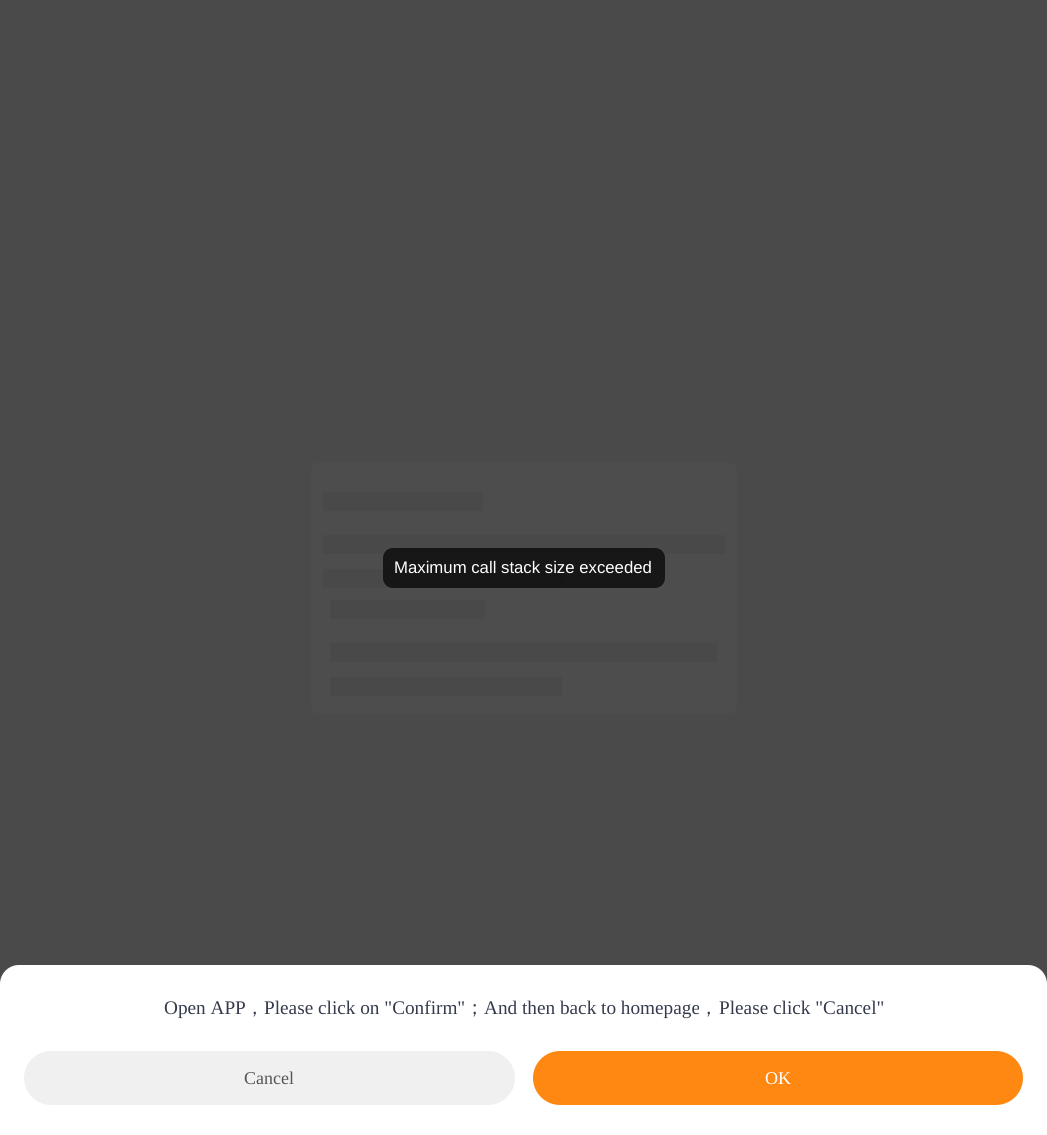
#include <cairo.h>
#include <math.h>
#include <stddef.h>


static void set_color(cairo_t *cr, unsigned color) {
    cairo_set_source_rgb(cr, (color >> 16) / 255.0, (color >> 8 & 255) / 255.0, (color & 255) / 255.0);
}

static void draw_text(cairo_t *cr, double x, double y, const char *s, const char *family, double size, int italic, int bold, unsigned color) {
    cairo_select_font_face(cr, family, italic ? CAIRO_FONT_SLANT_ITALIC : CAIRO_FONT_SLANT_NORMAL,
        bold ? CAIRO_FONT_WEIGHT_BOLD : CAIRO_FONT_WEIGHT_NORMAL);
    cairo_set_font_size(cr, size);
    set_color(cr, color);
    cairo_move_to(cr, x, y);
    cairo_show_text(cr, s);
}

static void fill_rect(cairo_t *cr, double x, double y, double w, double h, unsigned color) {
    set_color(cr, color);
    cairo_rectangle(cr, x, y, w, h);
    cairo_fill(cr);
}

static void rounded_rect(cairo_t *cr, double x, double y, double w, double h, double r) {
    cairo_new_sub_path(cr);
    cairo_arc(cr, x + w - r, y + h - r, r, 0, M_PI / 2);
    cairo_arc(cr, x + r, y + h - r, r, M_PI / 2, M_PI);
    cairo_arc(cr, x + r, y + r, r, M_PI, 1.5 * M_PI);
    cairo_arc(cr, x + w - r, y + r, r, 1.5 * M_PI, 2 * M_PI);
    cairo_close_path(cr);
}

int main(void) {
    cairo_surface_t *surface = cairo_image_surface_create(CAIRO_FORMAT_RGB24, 1047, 1135);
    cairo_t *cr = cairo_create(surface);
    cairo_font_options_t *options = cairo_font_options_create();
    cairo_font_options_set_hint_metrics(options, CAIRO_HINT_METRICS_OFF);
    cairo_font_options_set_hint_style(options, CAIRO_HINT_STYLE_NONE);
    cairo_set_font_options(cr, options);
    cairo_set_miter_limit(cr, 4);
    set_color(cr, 0x4A4A4B);
    cairo_paint(cr);
    set_color(cr, 0x4D4D4D);
    rounded_rect(cr, 311, 462, 426, 252, 10);
    cairo_fill(cr);
    fill_rect(cr, 323, 535, 402, 19, 0x49494A);
    fill_rect(cr, 323, 569, 241, 19, 0x49494A);
    cairo_set_source_rgba(cr, 0, 0, 0, 0.7);
    rounded_rect(cr, 383, 548, 282, 40, 10);
    cairo_fill(cr);
    draw_text(cr, 394, 573, "Maximum call stack size exceeded", "Liberation Sans", 16.75, 0, 0, 0xFFFFFF);
    fill_rect(cr, 323, 492, 160, 19, 0x49494A);
    fill_rect(cr, 330, 600, 155, 19, 0x49494A);
    fill_rect(cr, 330, 643, 387, 19, 0x49494A);
    fill_rect(cr, 330, 677, 232, 19, 0x49494A);
    set_color(cr, 0xFFFFFF);
    cairo_new_path(cr);
    cairo_move_to(cr, 19, 965);
    cairo_line_to(cr, 1028, 965);
    cairo_curve_to(cr, 1038.5, 965, 1047, 973.5, 1047, 984);
    cairo_line_to(cr, 1047, 1135);
    cairo_line_to(cr, 0, 1135);
    cairo_line_to(cr, 0, 984);
    cairo_curve_to(cr, 0, 973.5, 8.5, 965, 19, 965);
    cairo_close_path(cr);
    cairo_fill(cr);
    draw_text(cr, 164, 1014, "Open APP", "Liberation Serif", 19.25, 0, 0, 0x343B4D);
    draw_text(cr, 245, 1014, "，", "WenQuanYi Zen Hei Medium", 19.25, 0, 0, 0x343B4D);
    draw_text(cr, 264, 1014, "Please click on \"Confirm\"", "Liberation Serif", 19.25, 0, 0, 0x343B4D);
    draw_text(cr, 465, 1014, "；", "WenQuanYi Zen Hei Medium", 19.25, 0, 0, 0x343B4D);
    draw_text(cr, 484, 1014, "And then back to homepage", "Liberation Serif", 19.25, 0, 0, 0x343B4D);
    draw_text(cr, 699, 1014, "，", "WenQuanYi Zen Hei Medium", 19.25, 0, 0, 0x343B4D);
    draw_text(cr, 719, 1014, "Please click \"Cancel\"", "Liberation Serif", 19.25, 0, 0, 0x343B4D);
    set_color(cr, 0xF0F0F0);
    rounded_rect(cr, 24, 1051, 491, 54, 27);
    cairo_fill(cr);
    draw_text(cr, 244, 1084, "Cancel", "Liberation Serif", 18, 0, 0, 0x565656);
    set_color(cr, 0xFF8812);
    rounded_rect(cr, 533, 1051, 490, 54, 27);
    cairo_fill(cr);
    draw_text(cr, 765, 1084, "OK", "Liberation Serif", 18, 0, 0, 0xFFFFFF);
    cairo_surface_write_to_png(surface, "output.png");
    cairo_font_options_destroy(options);
    cairo_destroy(cr);
    cairo_surface_destroy(surface);
    return 0;
}
